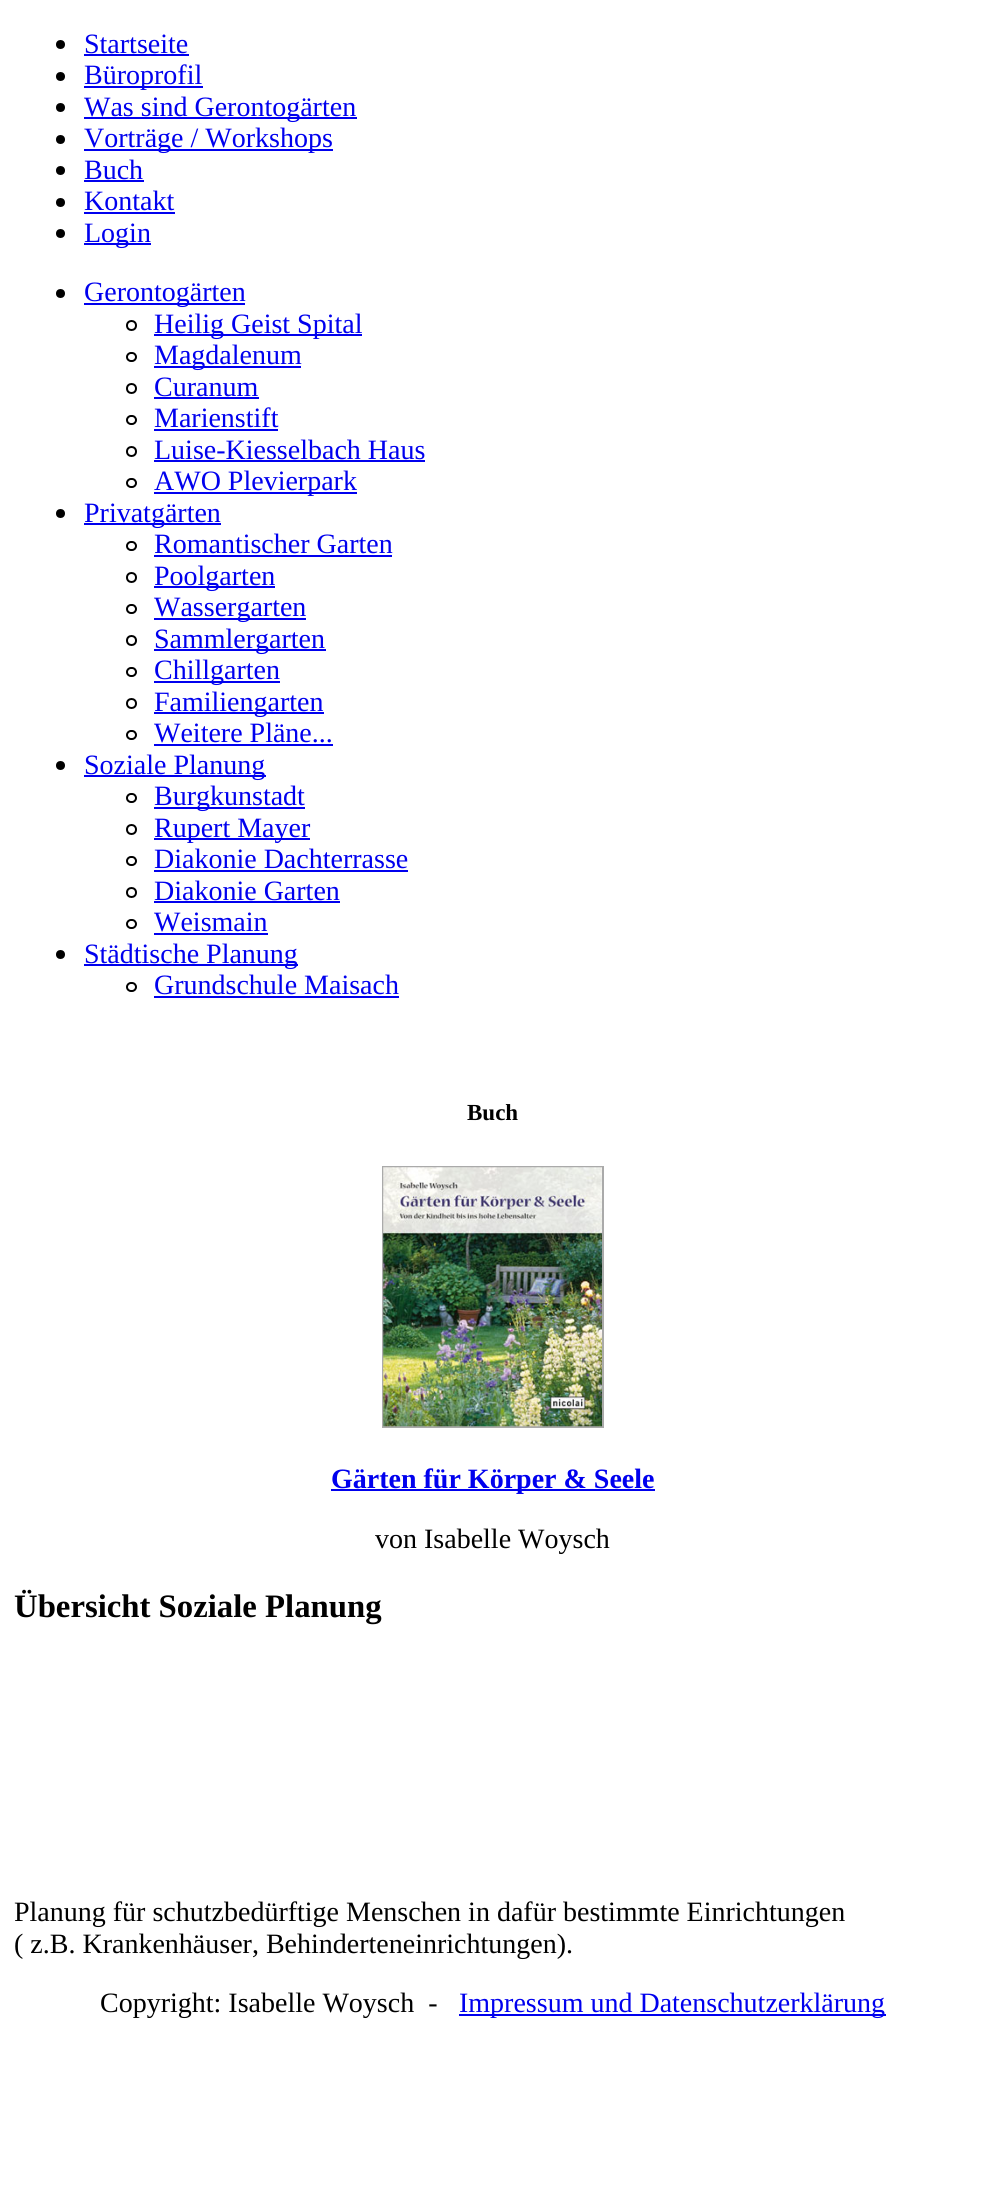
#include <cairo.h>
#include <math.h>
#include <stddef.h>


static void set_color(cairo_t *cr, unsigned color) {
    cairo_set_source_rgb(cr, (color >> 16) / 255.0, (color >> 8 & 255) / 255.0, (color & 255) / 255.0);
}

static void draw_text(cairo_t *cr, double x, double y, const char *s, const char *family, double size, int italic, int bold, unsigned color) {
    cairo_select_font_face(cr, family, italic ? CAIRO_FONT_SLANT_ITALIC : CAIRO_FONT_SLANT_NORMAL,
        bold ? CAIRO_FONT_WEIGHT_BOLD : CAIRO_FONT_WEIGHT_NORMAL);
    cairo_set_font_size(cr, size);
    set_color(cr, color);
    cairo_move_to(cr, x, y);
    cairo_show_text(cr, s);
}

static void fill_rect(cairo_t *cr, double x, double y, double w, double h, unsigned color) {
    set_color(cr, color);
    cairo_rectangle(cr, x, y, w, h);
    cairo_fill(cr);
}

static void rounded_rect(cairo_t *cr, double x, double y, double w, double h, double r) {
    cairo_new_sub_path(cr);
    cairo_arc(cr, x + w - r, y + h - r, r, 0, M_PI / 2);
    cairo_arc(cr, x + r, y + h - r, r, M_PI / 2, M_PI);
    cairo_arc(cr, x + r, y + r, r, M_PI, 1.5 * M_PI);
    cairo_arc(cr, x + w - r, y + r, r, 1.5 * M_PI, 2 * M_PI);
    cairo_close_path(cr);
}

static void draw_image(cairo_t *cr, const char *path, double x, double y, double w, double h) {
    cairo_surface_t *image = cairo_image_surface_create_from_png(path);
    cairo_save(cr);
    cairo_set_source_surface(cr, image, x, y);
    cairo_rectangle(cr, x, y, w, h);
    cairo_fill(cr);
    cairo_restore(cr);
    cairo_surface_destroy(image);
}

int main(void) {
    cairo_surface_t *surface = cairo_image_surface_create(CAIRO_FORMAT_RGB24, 984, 2193);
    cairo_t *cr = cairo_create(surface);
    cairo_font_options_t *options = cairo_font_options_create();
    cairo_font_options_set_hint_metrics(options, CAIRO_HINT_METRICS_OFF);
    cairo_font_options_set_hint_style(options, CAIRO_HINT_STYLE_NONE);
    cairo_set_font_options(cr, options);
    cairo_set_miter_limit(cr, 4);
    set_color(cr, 0xFFFFFF);
    cairo_paint(cr);
    set_color(cr, 0x000000);
    cairo_arc(cr, 60.5, 44.5, 4.5, 0, 2 * M_PI);
    cairo_fill(cr);
    draw_text(cr, 84, 53, "Startseite", "Liberation Serif", 28, 0, 0, 0x0000EE);
    fill_rect(cr, 84, 54, 105, 2, 0x0000EE);
    set_color(cr, 0x000000);
    cairo_new_path(cr);
    cairo_arc(cr, 60.5, 76.5, 4.5, 0, 2 * M_PI);
    cairo_fill(cr);
    fill_rect(cr, 84, 86, 119, 2, 0x0000EE);
    draw_text(cr, 84, 84, "Büroprofil", "Liberation Serif", 28, 0, 0, 0x0000EE);
    set_color(cr, 0x000000);
    cairo_new_path(cr);
    cairo_arc(cr, 60.5, 107.5, 4.5, 0, 2 * M_PI);
    cairo_fill(cr);
    fill_rect(cr, 84, 117, 273, 2, 0x0000EE);
    draw_text(cr, 84, 116, "Was sind Gerontogärten", "Liberation Serif", 28, 0, 0, 0x0000EE);
    set_color(cr, 0x000000);
    cairo_new_path(cr);
    cairo_arc(cr, 60.5, 139.5, 4.5, 0, 2 * M_PI);
    cairo_fill(cr);
    fill_rect(cr, 84, 149, 249, 2, 0x0000EE);
    draw_text(cr, 84, 147, "Vorträge / Workshops", "Liberation Serif", 28, 0, 0, 0x0000EE);
    set_color(cr, 0x000000);
    cairo_new_path(cr);
    cairo_arc(cr, 60.5, 170.5, 4.5, 0, 2 * M_PI);
    cairo_fill(cr);
    draw_text(cr, 84, 179, "Buch", "Liberation Serif", 28, 0, 0, 0x0000EE);
    fill_rect(cr, 84, 180, 60, 2, 0x0000EE);
    set_color(cr, 0x000000);
    cairo_new_path(cr);
    cairo_arc(cr, 60.5, 202.5, 4.5, 0, 2 * M_PI);
    cairo_fill(cr);
    draw_text(cr, 84, 210, "Kontakt", "Liberation Serif", 28, 0, 0, 0x0000EE);
    fill_rect(cr, 84, 212, 91, 2, 0x0000EE);
    set_color(cr, 0x000000);
    cairo_new_path(cr);
    cairo_arc(cr, 60.5, 233.5, 4.5, 0, 2 * M_PI);
    cairo_fill(cr);
    fill_rect(cr, 84, 243, 67, 2, 0x0000EE);
    draw_text(cr, 84, 242, "Login", "Liberation Serif", 28, 0, 0, 0x0000EE);
    set_color(cr, 0x000000);
    cairo_new_path(cr);
    cairo_arc(cr, 60.5, 293.5, 4.5, 0, 2 * M_PI);
    cairo_fill(cr);
    fill_rect(cr, 84, 303, 161, 2, 0x0000EE);
    draw_text(cr, 84, 301, "Gerontogärten", "Liberation Serif", 28, 0, 0, 0x0000EE);
    cairo_new_path(cr);
    cairo_arc(cr, 131.5, 325.5, 4.5, 0, 2 * M_PI);
    set_color(cr, 0x000000);
    cairo_stroke(cr);
    fill_rect(cr, 154, 334, 208, 2, 0x0000EE);
    draw_text(cr, 154, 333, "Heilig Geist Spital", "Liberation Serif", 28, 0, 0, 0x0000EE);
    rounded_rect(cr, 127, 353, 9, 8, 4);
    set_color(cr, 0x000000);
    cairo_stroke(cr);
    fill_rect(cr, 154, 366, 147, 2, 0x0000EE);
    draw_text(cr, 154, 364, "Magdalenum", "Liberation Serif", 28, 0, 0, 0x0000EE);
    cairo_new_path(cr);
    cairo_arc(cr, 131.5, 388.5, 4.5, 0, 2 * M_PI);
    set_color(cr, 0x000000);
    cairo_stroke(cr);
    draw_text(cr, 154, 396, "Curanum", "Liberation Serif", 28, 0, 0, 0x0000EE);
    fill_rect(cr, 154, 397, 105, 2, 0x0000EE);
    rounded_rect(cr, 127, 416, 9, 8, 4);
    set_color(cr, 0x000000);
    cairo_stroke(cr);
    draw_text(cr, 154, 427, "Marienstift", "Liberation Serif", 28, 0, 0, 0x0000EE);
    fill_rect(cr, 154, 429, 124, 2, 0x0000EE);
    cairo_new_path(cr);
    cairo_arc(cr, 131.5, 451.5, 4.5, 0, 2 * M_PI);
    set_color(cr, 0x000000);
    cairo_stroke(cr);
    draw_text(cr, 154, 459, "Luise-Kiesselbach Haus", "Liberation Serif", 28, 0, 0, 0x0000EE);
    fill_rect(cr, 154, 460, 271, 2, 0x0000EE);
    rounded_rect(cr, 127, 479, 9, 8, 4);
    set_color(cr, 0x000000);
    cairo_stroke(cr);
    fill_rect(cr, 154, 492, 203, 2, 0x0000EE);
    draw_text(cr, 154, 490, "AWO Plevierpark", "Liberation Serif", 28, 0, 0, 0x0000EE);
    set_color(cr, 0x000000);
    cairo_new_path(cr);
    cairo_arc(cr, 60.5, 513.5, 4.5, 0, 2 * M_PI);
    cairo_fill(cr);
    fill_rect(cr, 84, 523, 137, 2, 0x0000EE);
    draw_text(cr, 84, 522, "Privatgärten", "Liberation Serif", 28, 0, 0, 0x0000EE);
    rounded_rect(cr, 127, 542, 9, 8, 4);
    set_color(cr, 0x000000);
    cairo_stroke(cr);
    draw_text(cr, 154, 553, "Romantischer Garten", "Liberation Serif", 28, 0, 0, 0x0000EE);
    fill_rect(cr, 154, 555, 238, 2, 0x0000EE);
    cairo_new_path(cr);
    cairo_arc(cr, 131.5, 577.5, 4.5, 0, 2 * M_PI);
    set_color(cr, 0x000000);
    cairo_stroke(cr);
    fill_rect(cr, 154, 586, 121, 2, 0x0000EE);
    draw_text(cr, 154, 585, "Poolgarten", "Liberation Serif", 28, 0, 0, 0x0000EE);
    rounded_rect(cr, 127, 605, 9, 8, 4);
    set_color(cr, 0x000000);
    cairo_stroke(cr);
    fill_rect(cr, 154, 618, 152, 2, 0x0000EE);
    draw_text(cr, 154, 616, "Wassergarten", "Liberation Serif", 28, 0, 0, 0x0000EE);
    cairo_new_path(cr);
    cairo_arc(cr, 131.5, 640.5, 4.5, 0, 2 * M_PI);
    set_color(cr, 0x000000);
    cairo_stroke(cr);
    fill_rect(cr, 154, 649, 172, 2, 0x0000EE);
    draw_text(cr, 154, 648, "Sammlergarten", "Liberation Serif", 28, 0, 0, 0x0000EE);
    rounded_rect(cr, 127, 668, 9, 8, 4);
    set_color(cr, 0x000000);
    cairo_stroke(cr);
    fill_rect(cr, 154, 681, 126, 2, 0x0000EE);
    draw_text(cr, 154, 679, "Chillgarten", "Liberation Serif", 28, 0, 0, 0x0000EE);
    cairo_new_path(cr);
    cairo_arc(cr, 131.5, 703.5, 4.5, 0, 2 * M_PI);
    set_color(cr, 0x000000);
    cairo_stroke(cr);
    fill_rect(cr, 154, 712, 170, 2, 0x0000EE);
    draw_text(cr, 154, 711, "Familiengarten", "Liberation Serif", 28, 0, 0, 0x0000EE);
    rounded_rect(cr, 127, 731, 9, 8, 4);
    set_color(cr, 0x000000);
    cairo_stroke(cr);
    draw_text(cr, 154, 742, "Weitere Pläne...", "Liberation Serif", 28, 0, 0, 0x0000EE);
    fill_rect(cr, 154, 744, 179, 2, 0x0000EE);
    set_color(cr, 0x000000);
    cairo_new_path(cr);
    cairo_arc(cr, 60.5, 765.5, 4.5, 0, 2 * M_PI);
    cairo_fill(cr);
    fill_rect(cr, 84, 775, 182, 2, 0x0000EE);
    draw_text(cr, 84, 774, "Soziale Planung", "Liberation Serif", 28, 0, 0, 0x0000EE);
    rounded_rect(cr, 127, 794, 9, 8, 4);
    set_color(cr, 0x000000);
    cairo_stroke(cr);
    fill_rect(cr, 154, 807, 151, 2, 0x0000EE);
    draw_text(cr, 154, 805, "Burgkunstadt", "Liberation Serif", 28, 0, 0, 0x0000EE);
    cairo_new_path(cr);
    cairo_arc(cr, 131.5, 829.5, 4.5, 0, 2 * M_PI);
    set_color(cr, 0x000000);
    cairo_stroke(cr);
    fill_rect(cr, 154, 838, 156, 2, 0x0000EE);
    draw_text(cr, 154, 837, "Rupert Mayer", "Liberation Serif", 28, 0, 0, 0x0000EE);
    rounded_rect(cr, 127, 857, 9, 8, 4);
    set_color(cr, 0x000000);
    cairo_stroke(cr);
    draw_text(cr, 154, 868, "Diakonie Dachterrasse", "Liberation Serif", 28, 0, 0, 0x0000EE);
    fill_rect(cr, 154, 870, 254, 2, 0x0000EE);
    cairo_new_path(cr);
    cairo_arc(cr, 131.5, 892.5, 4.5, 0, 2 * M_PI);
    set_color(cr, 0x000000);
    cairo_stroke(cr);
    draw_text(cr, 154, 900, "Diakonie Garten", "Liberation Serif", 28, 0, 0, 0x0000EE);
    fill_rect(cr, 154, 901, 186, 2, 0x0000EE);
    rounded_rect(cr, 127, 920, 9, 8, 4);
    set_color(cr, 0x000000);
    cairo_stroke(cr);
    draw_text(cr, 154, 931, "Weismain", "Liberation Serif", 28, 0, 0, 0x0000EE);
    fill_rect(cr, 154, 933, 114, 2, 0x0000EE);
    set_color(cr, 0x000000);
    cairo_new_path(cr);
    cairo_arc(cr, 60.5, 954.5, 4.5, 0, 2 * M_PI);
    cairo_fill(cr);
    fill_rect(cr, 84, 964, 214, 2, 0x0000EE);
    draw_text(cr, 84, 963, "Städtische Planung", "Liberation Serif", 28, 0, 0, 0x0000EE);
    rounded_rect(cr, 127, 983, 9, 8, 4);
    set_color(cr, 0x000000);
    cairo_stroke(cr);
    draw_text(cr, 154, 994, "Grundschule Maisach", "Liberation Serif", 28, 0, 0, 0x0000EE);
    fill_rect(cr, 154, 996, 245, 2, 0x0000EE);
    draw_text(cr, 467, 1120, "Buch", "Liberation Serif", 23, 0, 1, 0x000000);
    cairo_rectangle(cr, 383, 1167, 220, 260);
    set_color(cr, 0xAAAAAA);
    cairo_stroke(cr);
    draw_image(cr, "assets/img1.png", 383, 1167, 219, 260);
    fill_rect(cr, 331, 1489, 324, 2, 0x0000EE);
    draw_text(cr, 331, 1488, "Gärten für Körper & Seele", "Liberation Serif", 28, 0, 1, 0x0000EE);
    draw_text(cr, 375, 1548, "von Isabelle Woysch", "Liberation Serif", 28, 0, 0, 0x000000);
    draw_text(cr, 14, 1617, "Übersicht Soziale Planung", "Liberation Serif", 32.75, 0, 1, 0x000000);
    draw_text(cr, 14, 1921, "Planung für schutzbedürftige Menschen in dafür bestimmte Einrichtungen", "Liberation Serif", 28, 0, 0, 0x000000);
    draw_text(cr, 14, 1953, "( z.B. Krankenhäuser, Behinderteneinrichtungen).", "Liberation Serif", 28, 0, 0, 0x000000);
    draw_text(cr, 100, 2012, "Copyright: Isabelle Woysch  -", "Liberation Serif", 28, 0, 0, 0x000000);
    fill_rect(cr, 459, 2014, 427, 2, 0x0000EE);
    draw_text(cr, 459, 2012, "Impressum und Datenschutzerklärung", "Liberation Serif", 28, 0, 0, 0x0000EE);
    cairo_surface_write_to_png(surface, "output.png");
    cairo_font_options_destroy(options);
    cairo_destroy(cr);
    cairo_surface_destroy(surface);
    return 0;
}
